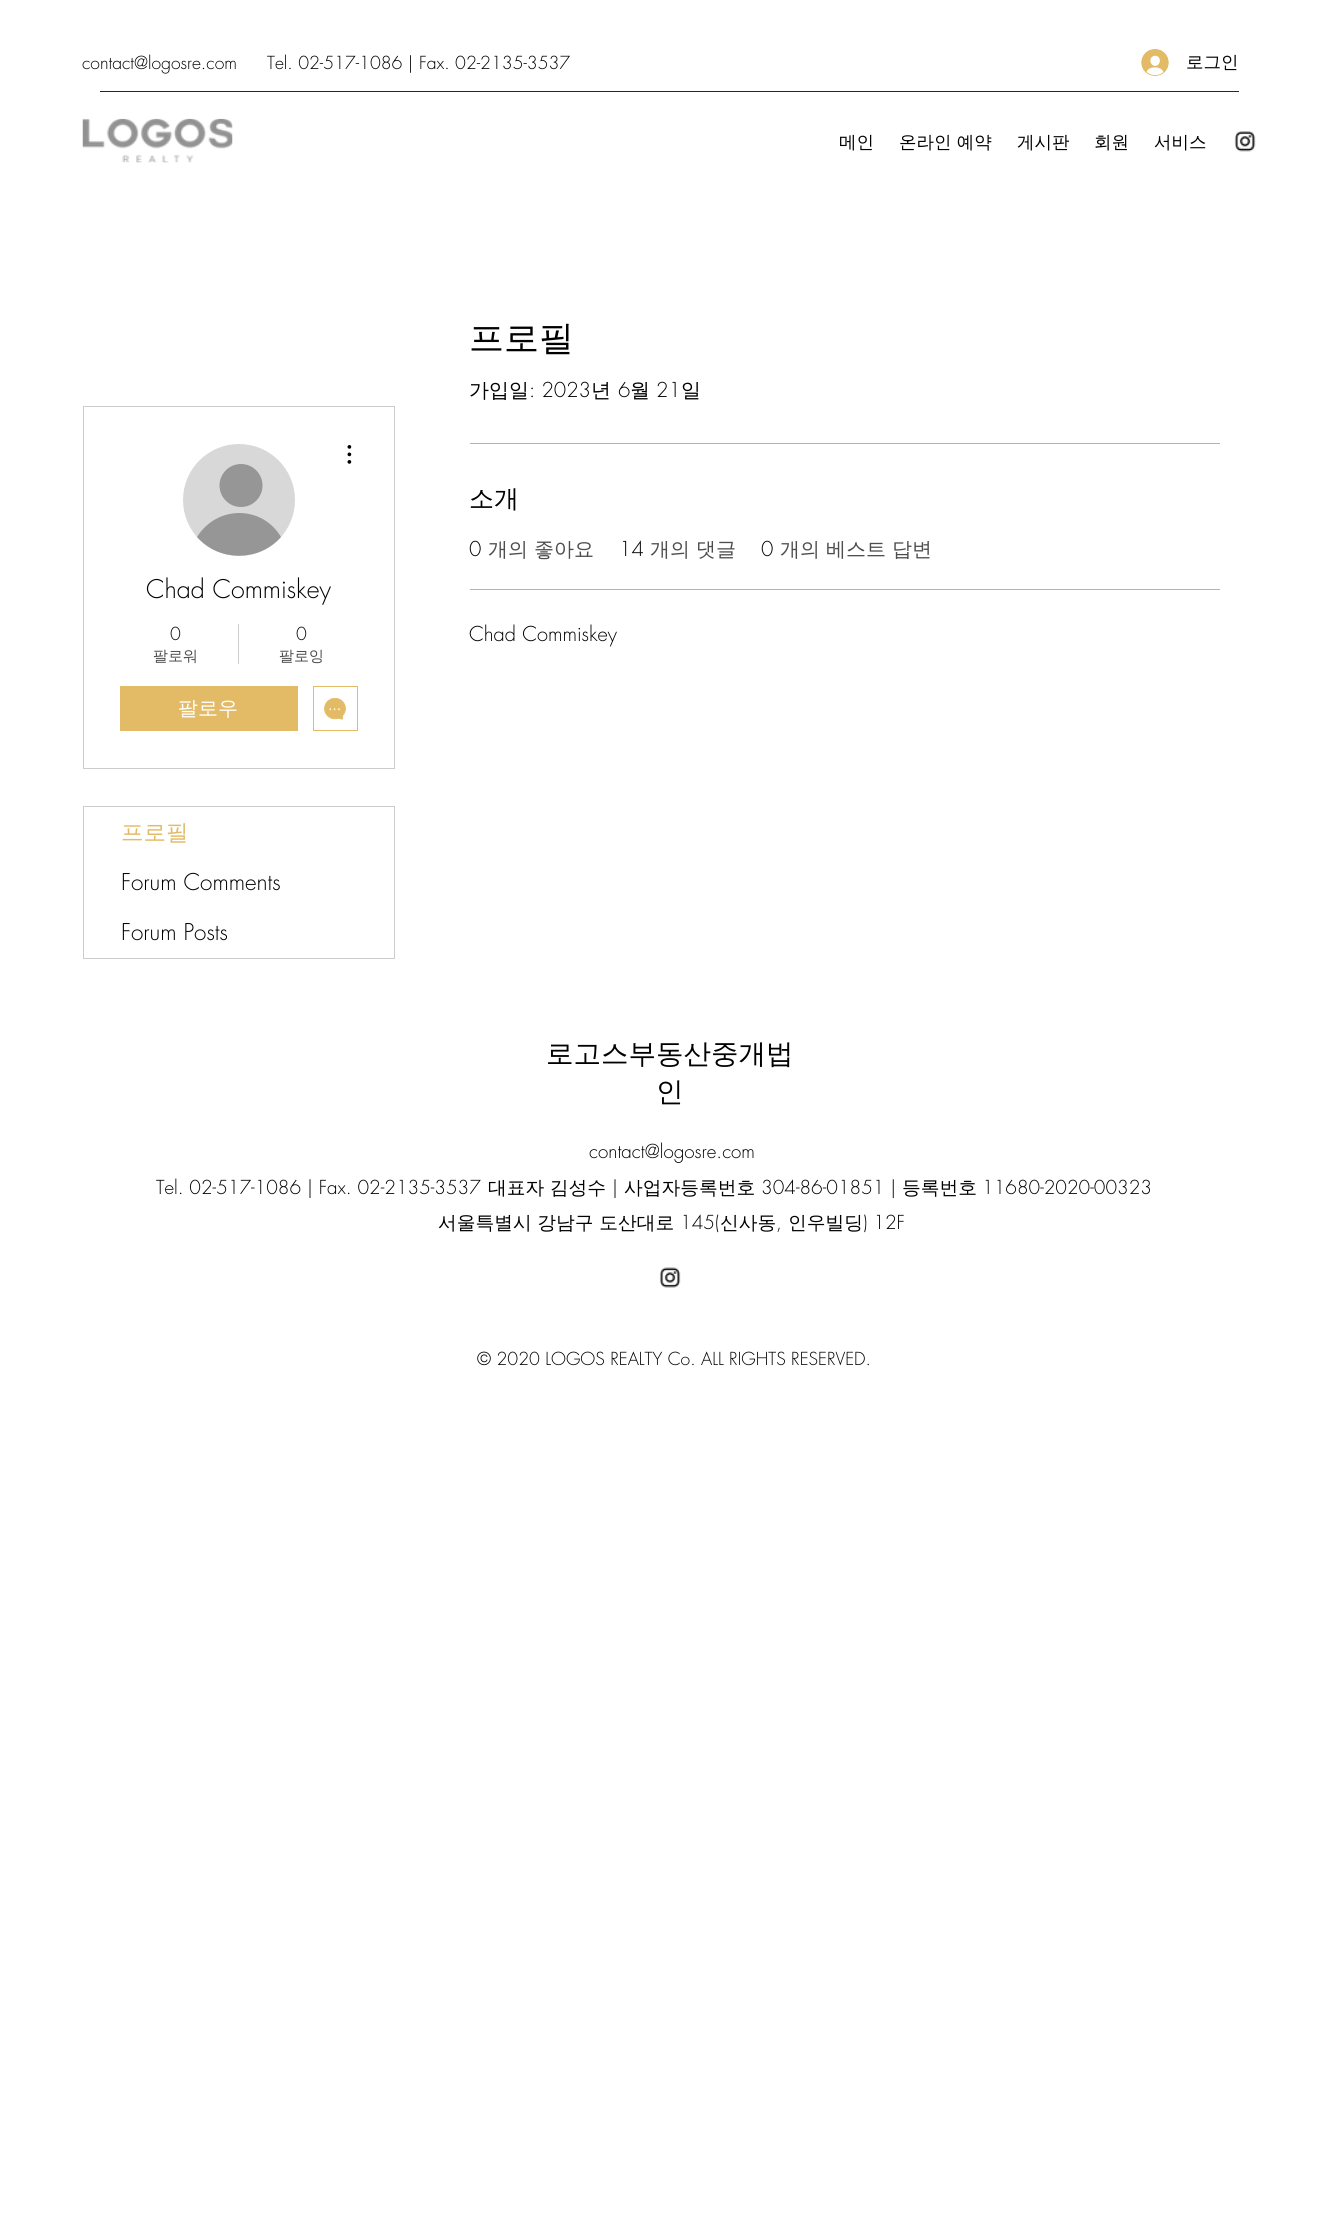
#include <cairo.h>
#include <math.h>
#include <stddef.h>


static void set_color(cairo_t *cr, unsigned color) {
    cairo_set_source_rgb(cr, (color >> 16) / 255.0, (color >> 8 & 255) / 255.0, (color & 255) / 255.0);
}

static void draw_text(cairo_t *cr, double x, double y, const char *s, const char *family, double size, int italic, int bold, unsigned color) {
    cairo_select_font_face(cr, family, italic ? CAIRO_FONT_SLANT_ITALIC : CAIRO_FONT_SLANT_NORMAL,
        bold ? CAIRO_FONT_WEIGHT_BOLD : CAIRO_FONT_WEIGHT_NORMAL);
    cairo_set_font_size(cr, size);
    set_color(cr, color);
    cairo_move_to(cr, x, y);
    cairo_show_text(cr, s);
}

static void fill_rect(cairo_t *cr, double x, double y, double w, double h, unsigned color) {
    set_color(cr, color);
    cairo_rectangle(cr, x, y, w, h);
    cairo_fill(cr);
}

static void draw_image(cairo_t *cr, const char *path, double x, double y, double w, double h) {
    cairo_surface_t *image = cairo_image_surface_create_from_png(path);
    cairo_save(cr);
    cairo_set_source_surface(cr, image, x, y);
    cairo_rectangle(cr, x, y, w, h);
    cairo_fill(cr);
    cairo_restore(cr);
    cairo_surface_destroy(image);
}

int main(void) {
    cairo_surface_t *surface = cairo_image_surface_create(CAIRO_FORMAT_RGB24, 1338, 2238);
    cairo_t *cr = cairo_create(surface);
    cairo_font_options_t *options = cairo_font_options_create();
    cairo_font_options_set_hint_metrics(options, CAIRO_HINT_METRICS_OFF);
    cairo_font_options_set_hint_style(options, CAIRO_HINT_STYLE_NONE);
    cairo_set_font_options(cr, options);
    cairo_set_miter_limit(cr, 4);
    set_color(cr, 0xFFFFFF);
    cairo_paint(cr);
    draw_text(cr, 82, 69, "contact@logosre.com", "futura Light", 17.5, 0, 0, 0x000000);
    draw_text(cr, 267, 69, "Tel. 02-517-1086 | Fax. 02-2135-3537", "futura Light", 17.5, 0, 0, 0x000000);
    draw_image(cr, "assets/img1.png", 1141, 49, 28, 27);
    draw_text(cr, 1186, 68, "로그인", "WenQuanYi Zen Hei Medium", 17.5, 0, 0, 0x000000);
    fill_rect(cr, 100, 91, 1139, 1, 0x262626);
    draw_image(cr, "assets/img2.png", 82, 118, 151, 45);
    draw_text(cr, 839, 148, "메인", "WenQuanYi Zen Hei Medium", 17.5, 0, 0, 0x000000);
    draw_text(cr, 899, 148, "온라인 예약", "WenQuanYi Zen Hei Medium", 17.5, 0, 0, 0x000000);
    draw_text(cr, 1017, 148, "게시판", "WenQuanYi Zen Hei Medium", 17.5, 0, 0, 0x000000);
    draw_text(cr, 1094, 148, "회원", "WenQuanYi Zen Hei Medium", 17.5, 0, 0, 0x000000);
    draw_text(cr, 1154, 148, "서비스", "WenQuanYi Zen Hei Medium", 17.5, 0, 0, 0x000000);
    draw_image(cr, "assets/img3.png", 1234, 131, 22, 21);
    draw_text(cr, 469, 350, "프로필", "WenQuanYi Zen Hei Medium", 35, 0, 0, 0x000000);
    draw_text(cr, 469, 397, "가입일", "WenQuanYi Zen Hei Medium", 20, 0, 0, 0x000000);
    draw_text(cr, 529, 397, ": 2023", "futura Light", 20, 0, 0, 0x000000);
    draw_text(cr, 591, 397, "년", "WenQuanYi Zen Hei Medium", 20, 0, 0, 0x000000);
    draw_text(cr, 618, 397, "6", "futura Light", 20, 0, 0, 0x000000);
    draw_text(cr, 630, 397, "월", "WenQuanYi Zen Hei Medium", 20, 0, 0, 0x000000);
    draw_text(cr, 656, 397, "21", "futura Light", 20, 0, 0, 0x000000);
    draw_text(cr, 681, 397, "일", "WenQuanYi Zen Hei Medium", 20, 0, 0, 0x000000);
    fill_rect(cr, 470, 443, 750, 1, 0xB3B3B3);
    draw_text(cr, 469, 507, "소개", "WenQuanYi Zen Hei Medium", 25, 0, 0, 0x000000);
    draw_text(cr, 469, 556, "0", "futura Light", 20, 0, 0, 0x000000);
    draw_text(cr, 488, 556, "개의 좋아요", "WenQuanYi Zen Hei Medium", 20, 0, 0, 0x4D4D4D);
    draw_text(cr, 619, 556, "14", "futura Light", 20, 0, 0, 0x000000);
    draw_text(cr, 650, 556, "개의 댓글", "WenQuanYi Zen Hei Medium", 20, 0, 0, 0x4D4D4D);
    draw_text(cr, 761, 556, "0", "futura Light", 20, 0, 0, 0x000000);
    draw_text(cr, 780, 556, "개의 베스트 답변", "WenQuanYi Zen Hei Medium", 20, 0, 0, 0x4D4D4D);
    fill_rect(cr, 470, 589, 750, 1, 0xB3B3B3);
    draw_text(cr, 469, 641, "Chad Commiskey", "futura Light", 20, 0, 0, 0x000000);
    cairo_rectangle(cr, 83.5, 406.5, 311, 362);
    set_color(cr, 0xCCCCCC);
    cairo_set_line_width(cr, 1);
    cairo_stroke(cr);
    set_color(cr, 0xD8D8D8);
    cairo_arc(cr, 239, 500, 56, 0, 2 * M_PI);
    cairo_fill(cr);
    set_color(cr, 0x969696);
    cairo_arc(cr, 241, 485.5, 21.5, 0, 2 * M_PI);
    cairo_fill(cr);
    cairo_new_path(cr);
    cairo_move_to(cr, 281, 537);
    cairo_curve_to(cr, 259, 562, 219, 562, 197, 537);
    cairo_curve_to(cr, 217, 505, 262, 505, 281, 537);
    cairo_close_path(cr);
    cairo_fill(cr);
    draw_image(cr, "assets/img4.png", 347, 445, 5, 19);
    draw_text(cr, 146, 598, "Chad Commiskey", "futura Light", 25, 0, 0, 0x000000);
    draw_text(cr, 170, 640, "0", "futura Light", 17.5, 0, 0, 0x000000);
    draw_text(cr, 153, 661, "팔로워", "WenQuanYi Zen Hei Medium", 15, 0, 0, 0x4D4D4D);
    fill_rect(cr, 238, 624, 1, 40, 0xCCCCCC);
    draw_text(cr, 296, 640, "0", "futura Light", 17.5, 0, 0, 0x000000);
    draw_text(cr, 279, 661, "팔로잉", "WenQuanYi Zen Hei Medium", 15, 0, 0, 0x4D4D4D);
    fill_rect(cr, 120, 686, 178, 45, 0xE3BB66);
    draw_text(cr, 178, 715, "팔로우", "WenQuanYi Zen Hei Medium", 20, 0, 0, 0xFFFFFF);
    cairo_rectangle(cr, 313.5, 686.5, 44, 44);
    set_color(cr, 0xE3BB66);
    cairo_stroke(cr);
    draw_image(cr, "assets/img5.png", 324, 698, 22, 22);
    cairo_rectangle(cr, 83.5, 806.5, 311, 152);
    set_color(cr, 0xCCCCCC);
    cairo_stroke(cr);
    draw_text(cr, 121, 840, "프로필", "WenQuanYi Zen Hei Medium", 22.5, 0, 0, 0xE3BB66);
    draw_text(cr, 121, 890, "Forum Comments", "futura Light", 22.5, 0, 0, 0x000000);
    draw_text(cr, 121, 940, "Forum Posts", "futura Light", 22.5, 0, 0, 0x000000);
    draw_text(cr, 546, 1063, "로고스부동산중개법", "WenQuanYi Zen Hei Medium", 27.5, 0, 0, 0x000000);
    draw_text(cr, 656, 1101, "인", "WenQuanYi Zen Hei Medium", 27.5, 0, 0, 0x000000);
    draw_text(cr, 589, 1158, "contact@logosre.com", "futura Light", 18.75, 0, 0, 0x000000);
    draw_text(cr, 156, 1194, "Tel. 02-517-1086 | Fax. 02-2135-3537", "futura Light", 18.75, 0, 0, 0x000000);
    draw_text(cr, 488, 1194, "대표자 김성수", "WenQuanYi Zen Hei Medium", 18.75, 0, 0, 0x000000);
    draw_text(cr, 612, 1194, "|", "futura Light", 18.75, 0, 0, 0x000000);
    draw_text(cr, 624, 1194, "사업자등록번호", "WenQuanYi Zen Hei Medium", 18.75, 0, 0, 0x000000);
    draw_text(cr, 761, 1194, "304-86-01851 |", "futura Light", 18.75, 0, 0, 0x000000);
    draw_text(cr, 902, 1194, "등록번호", "WenQuanYi Zen Hei Medium", 18.75, 0, 0, 0x000000);
    draw_text(cr, 982, 1194, "11680-2020-00323", "futura Light", 18.75, 0, 0, 0x000000);
    draw_text(cr, 438, 1229, "서울특별시 강남구 도산대로", "WenQuanYi Zen Hei Medium", 18.75, 0, 0, 0x000000);
    draw_text(cr, 680, 1229, "145(", "futura Light", 18.75, 0, 0, 0x000000);
    draw_text(cr, 720, 1229, "신사동", "WenQuanYi Zen Hei Medium", 18.75, 0, 0, 0x000000);
    draw_text(cr, 776, 1229, ",", "futura Light", 18.75, 0, 0, 0x000000);
    draw_text(cr, 788, 1229, "인우빌딩", "WenQuanYi Zen Hei Medium", 18.75, 0, 0, 0x000000);
    draw_text(cr, 863, 1229, ") 12F", "futura Light", 18.75, 0, 0, 0x000000);
    draw_image(cr, "assets/img6.png", 659, 1267, 22, 21);
    draw_text(cr, 477, 1365, "© 2020 LOGOS REALTY Co. ALL RIGHTS RESERVED.", "futura Light", 17.5, 0, 0, 0x000000);
    cairo_surface_write_to_png(surface, "output.png");
    cairo_font_options_destroy(options);
    cairo_destroy(cr);
    cairo_surface_destroy(surface);
    return 0;
}
